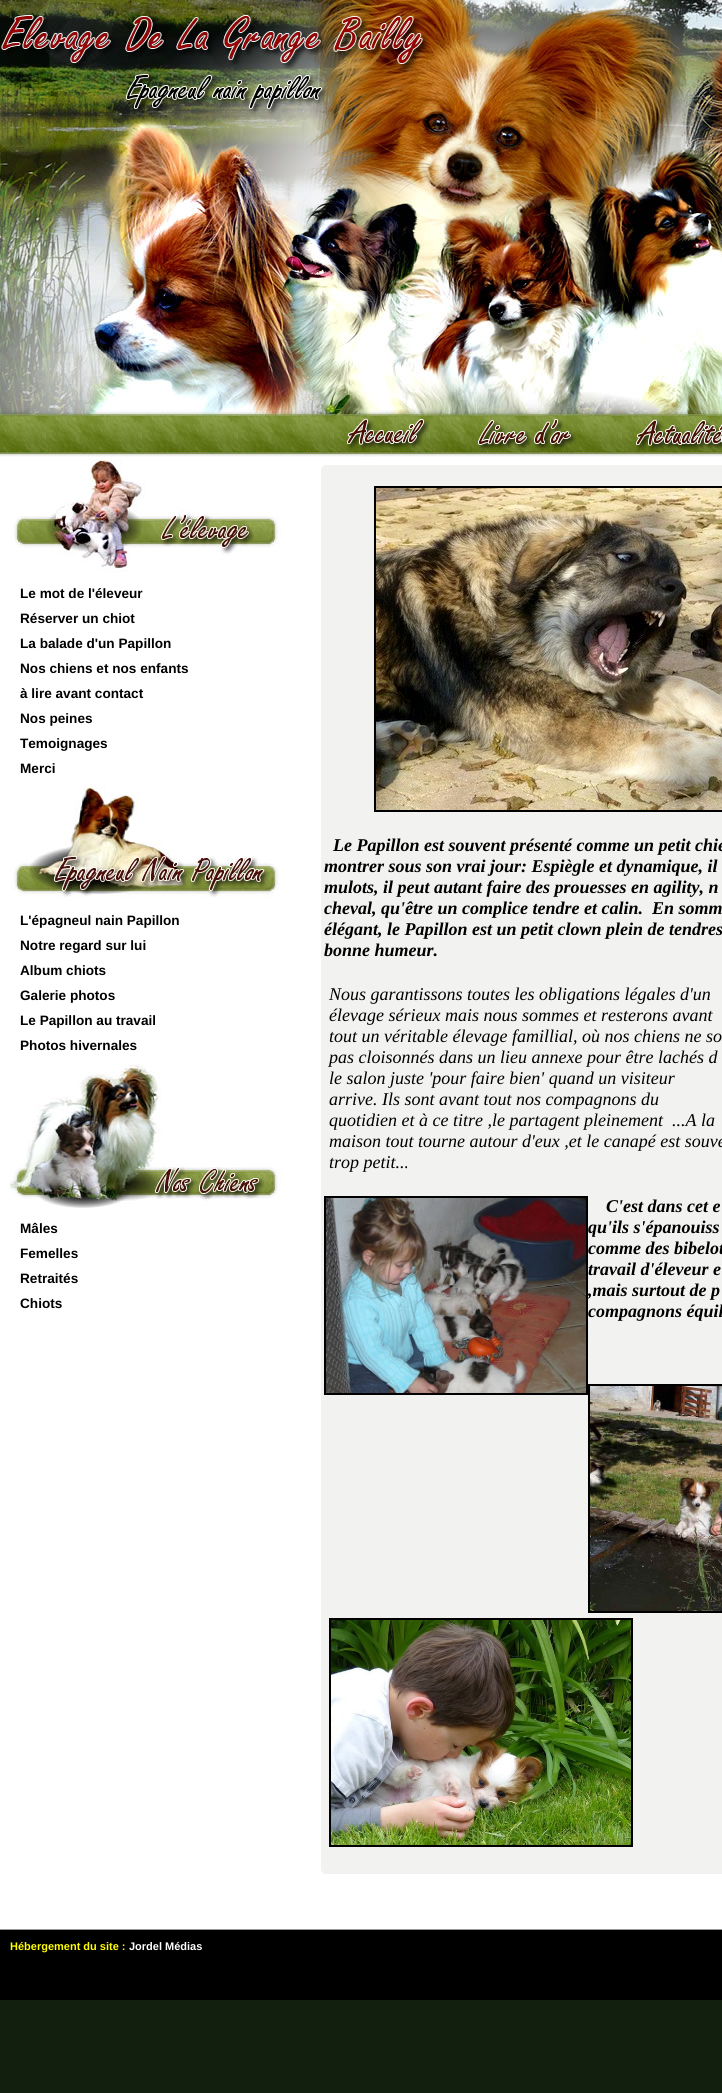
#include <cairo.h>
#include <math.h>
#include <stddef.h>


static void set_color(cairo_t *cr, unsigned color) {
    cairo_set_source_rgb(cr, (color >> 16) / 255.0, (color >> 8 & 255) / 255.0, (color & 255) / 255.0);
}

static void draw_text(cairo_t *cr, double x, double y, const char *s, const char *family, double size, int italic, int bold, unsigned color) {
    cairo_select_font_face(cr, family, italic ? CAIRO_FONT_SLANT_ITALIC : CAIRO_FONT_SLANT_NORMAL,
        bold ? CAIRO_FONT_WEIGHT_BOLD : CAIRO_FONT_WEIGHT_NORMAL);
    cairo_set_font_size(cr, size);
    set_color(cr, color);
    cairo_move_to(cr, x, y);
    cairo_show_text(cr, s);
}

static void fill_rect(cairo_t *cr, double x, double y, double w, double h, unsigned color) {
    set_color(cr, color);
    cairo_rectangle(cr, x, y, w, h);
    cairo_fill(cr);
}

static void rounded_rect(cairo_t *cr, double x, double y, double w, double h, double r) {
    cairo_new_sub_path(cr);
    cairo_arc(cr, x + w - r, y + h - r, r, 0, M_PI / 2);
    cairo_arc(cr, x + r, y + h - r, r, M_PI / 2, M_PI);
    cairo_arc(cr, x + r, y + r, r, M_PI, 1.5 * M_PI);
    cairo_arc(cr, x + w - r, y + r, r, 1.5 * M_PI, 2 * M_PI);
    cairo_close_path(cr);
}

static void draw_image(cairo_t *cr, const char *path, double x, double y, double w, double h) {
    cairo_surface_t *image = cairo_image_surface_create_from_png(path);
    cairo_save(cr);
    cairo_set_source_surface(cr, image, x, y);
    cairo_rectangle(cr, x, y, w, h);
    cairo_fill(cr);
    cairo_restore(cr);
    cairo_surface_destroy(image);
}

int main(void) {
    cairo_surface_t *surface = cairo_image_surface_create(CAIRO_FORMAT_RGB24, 722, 2093);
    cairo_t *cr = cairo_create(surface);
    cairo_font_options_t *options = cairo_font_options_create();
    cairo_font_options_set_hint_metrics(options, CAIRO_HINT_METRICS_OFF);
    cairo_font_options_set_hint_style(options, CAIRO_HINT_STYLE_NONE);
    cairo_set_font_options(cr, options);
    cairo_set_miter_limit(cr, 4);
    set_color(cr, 0x121E0E);
    cairo_paint(cr);
    fill_rect(cr, 0, 457, 722, 1472, 0xFFFFFF);
    draw_image(cr, "assets/img1.png", 0, 0, 722, 457);
    draw_image(cr, "assets/img2.png", 347, 418, 83, 32);
    draw_image(cr, "assets/img3.png", 478, 419, 98, 32);
    draw_image(cr, "assets/img4.png", 636, 419, 86, 32);
    draw_image(cr, "assets/img5.png", 10, 460, 272, 112);
    draw_text(cr, 20, 598, "Le mot de l'éleveur", "Liberation Sans", 13.6, 0, 1, 0x000000);
    draw_text(cr, 20, 623, "Réserver un chiot", "Liberation Sans", 13.6, 0, 1, 0x000000);
    draw_text(cr, 20, 648, "La balade d'un Papillon", "Liberation Sans", 13.6, 0, 1, 0x000000);
    draw_text(cr, 20, 673, "Nos chiens et nos enfants", "Liberation Sans", 13.6, 0, 1, 0x000000);
    draw_text(cr, 20, 698, "à lire avant contact", "Liberation Sans", 13.6, 0, 1, 0x000000);
    draw_text(cr, 20, 723, "Nos peines", "Liberation Sans", 13.6, 0, 1, 0x000000);
    draw_text(cr, 20, 748, "Temoignages", "Liberation Sans", 13.6, 0, 1, 0x000000);
    draw_text(cr, 20, 773, "Merci", "Liberation Sans", 13.6, 0, 1, 0x000000);
    draw_image(cr, "assets/img6.png", 10, 786, 271, 112);
    draw_text(cr, 20, 925, "L'épagneul nain Papillon", "Liberation Sans", 13.6, 0, 1, 0x000000);
    draw_text(cr, 20, 950, "Notre regard sur lui", "Liberation Sans", 13.6, 0, 1, 0x000000);
    draw_text(cr, 20, 975, "Album chiots", "Liberation Sans", 13.6, 0, 1, 0x000000);
    draw_text(cr, 20, 1000, "Galerie photos", "Liberation Sans", 13.6, 0, 1, 0x000000);
    draw_text(cr, 20, 1025, "Le Papillon au travail", "Liberation Sans", 13.6, 0, 1, 0x000000);
    draw_text(cr, 20, 1050, "Photos hivernales", "Liberation Sans", 13.6, 0, 1, 0x000000);
    draw_image(cr, "assets/img7.png", 10, 1063, 272, 145);
    draw_text(cr, 20, 1233, "Mâles", "Liberation Sans", 13.6, 0, 1, 0x000000);
    draw_text(cr, 20, 1258, "Femelles", "Liberation Sans", 13.6, 0, 1, 0x000000);
    draw_text(cr, 20, 1283, "Retraités", "Liberation Sans", 13.6, 0, 1, 0x000000);
    draw_text(cr, 20, 1308, "Chiots", "Liberation Sans", 13.6, 0, 1, 0x000000);
    set_color(cr, 0xF2F2F0);
    rounded_rect(cr, 321, 465, 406, 1409, 5);
    cairo_fill(cr);
    cairo_rectangle(cr, 375, 487, 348, 324);
    set_color(cr, 0x000000);
    cairo_stroke(cr);
    draw_image(cr, "assets/img8.png", 376, 488, 346, 322);
    draw_text(cr, 333, 851, "Le Papillon est souvent présenté comme un petit chie", "Liberation Serif", 18, 1, 1, 0x000000);
    draw_text(cr, 324, 872, "montrer sous son vrai jour: Espiègle et dynamique, il", "Liberation Serif", 18, 1, 1, 0x000000);
    draw_text(cr, 324, 893, "mulots, il peut autant faire des prouesses en agility, n", "Liberation Serif", 18, 1, 1, 0x000000);
    draw_text(cr, 324, 914, "cheval, qu'être un complice tendre et calin.  En somm", "Liberation Serif", 18, 1, 1, 0x000000);
    draw_text(cr, 324, 935, "élégant, le Papillon est un petit clown plein de tendres", "Liberation Serif", 18, 1, 1, 0x000000);
    draw_text(cr, 324, 956, "bonne humeur.", "Liberation Serif", 18, 1, 1, 0x000000);
    draw_text(cr, 329, 1000, "Nous garantissons toutes les obligations légales d'un", "Liberation Serif", 18, 1, 0, 0x000000);
    draw_text(cr, 329, 1021, "élevage sérieux mais nous sommes et resterons avant", "Liberation Serif", 18, 1, 0, 0x000000);
    draw_text(cr, 329, 1042, "tout un véritable élevage famillial, où nos chiens ne so", "Liberation Serif", 18, 1, 0, 0x000000);
    draw_text(cr, 329, 1063, "pas cloisonnés dans un lieu annexe pour être lachés d", "Liberation Serif", 18, 1, 0, 0x000000);
    draw_text(cr, 329, 1084, "le salon juste 'pour faire bien' quand un visiteur", "Liberation Serif", 18, 1, 0, 0x000000);
    draw_text(cr, 329, 1105, "arrive. Ils sont avant tout nos compagnons du", "Liberation Serif", 18, 1, 0, 0x000000);
    draw_text(cr, 329, 1126, "quotidien et à ce titre ,le partagent pleinement  ...A la", "Liberation Serif", 18, 1, 0, 0x000000);
    draw_text(cr, 329, 1147, "maison tout tourne autour d'eux ,et le canapé est souve", "Liberation Serif", 18, 1, 0, 0x000000);
    draw_text(cr, 329, 1168, "trop petit...", "Liberation Serif", 18, 1, 0, 0x000000);
    cairo_rectangle(cr, 325, 1197, 262, 197);
    cairo_stroke(cr);
    draw_image(cr, "assets/img9.png", 326, 1198, 260, 195);
    draw_text(cr, 606, 1212, "C'est dans cet e", "Liberation Serif", 18, 1, 1, 0x000000);
    draw_text(cr, 588, 1233, "qu'ils s'épanouiss", "Liberation Serif", 18, 1, 1, 0x000000);
    draw_text(cr, 588, 1254, "comme des bibelot", "Liberation Serif", 18, 1, 1, 0x000000);
    draw_text(cr, 588, 1275, "travail d'éleveur e", "Liberation Serif", 18, 1, 1, 0x000000);
    draw_text(cr, 588, 1296, ",mais surtout de p", "Liberation Serif", 18, 1, 1, 0x000000);
    draw_text(cr, 588, 1317, "compagnons équil", "Liberation Serif", 18, 1, 1, 0x000000);
    cairo_rectangle(cr, 589, 1385, 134, 227);
    cairo_stroke(cr);
    draw_image(cr, "assets/img10.png", 590, 1386, 132, 225);
    cairo_rectangle(cr, 330, 1619, 302, 227);
    cairo_stroke(cr);
    draw_image(cr, "assets/img11.png", 331, 1620, 300, 225);
    fill_rect(cr, 0, 1930, 722, 70, 0x000000);
    fill_rect(cr, 0, 1929, 722, 1, 0x999999);
    draw_text(cr, 10, 1950, "Hébergement du site :", "Liberation Sans", 11, 0, 1, 0xFFFF00);
    draw_text(cr, 129, 1950, "Jordel Médias", "Liberation Sans", 11, 0, 1, 0xFFFFFF);
    cairo_surface_write_to_png(surface, "output.png");
    cairo_font_options_destroy(options);
    cairo_destroy(cr);
    cairo_surface_destroy(surface);
    return 0;
}
